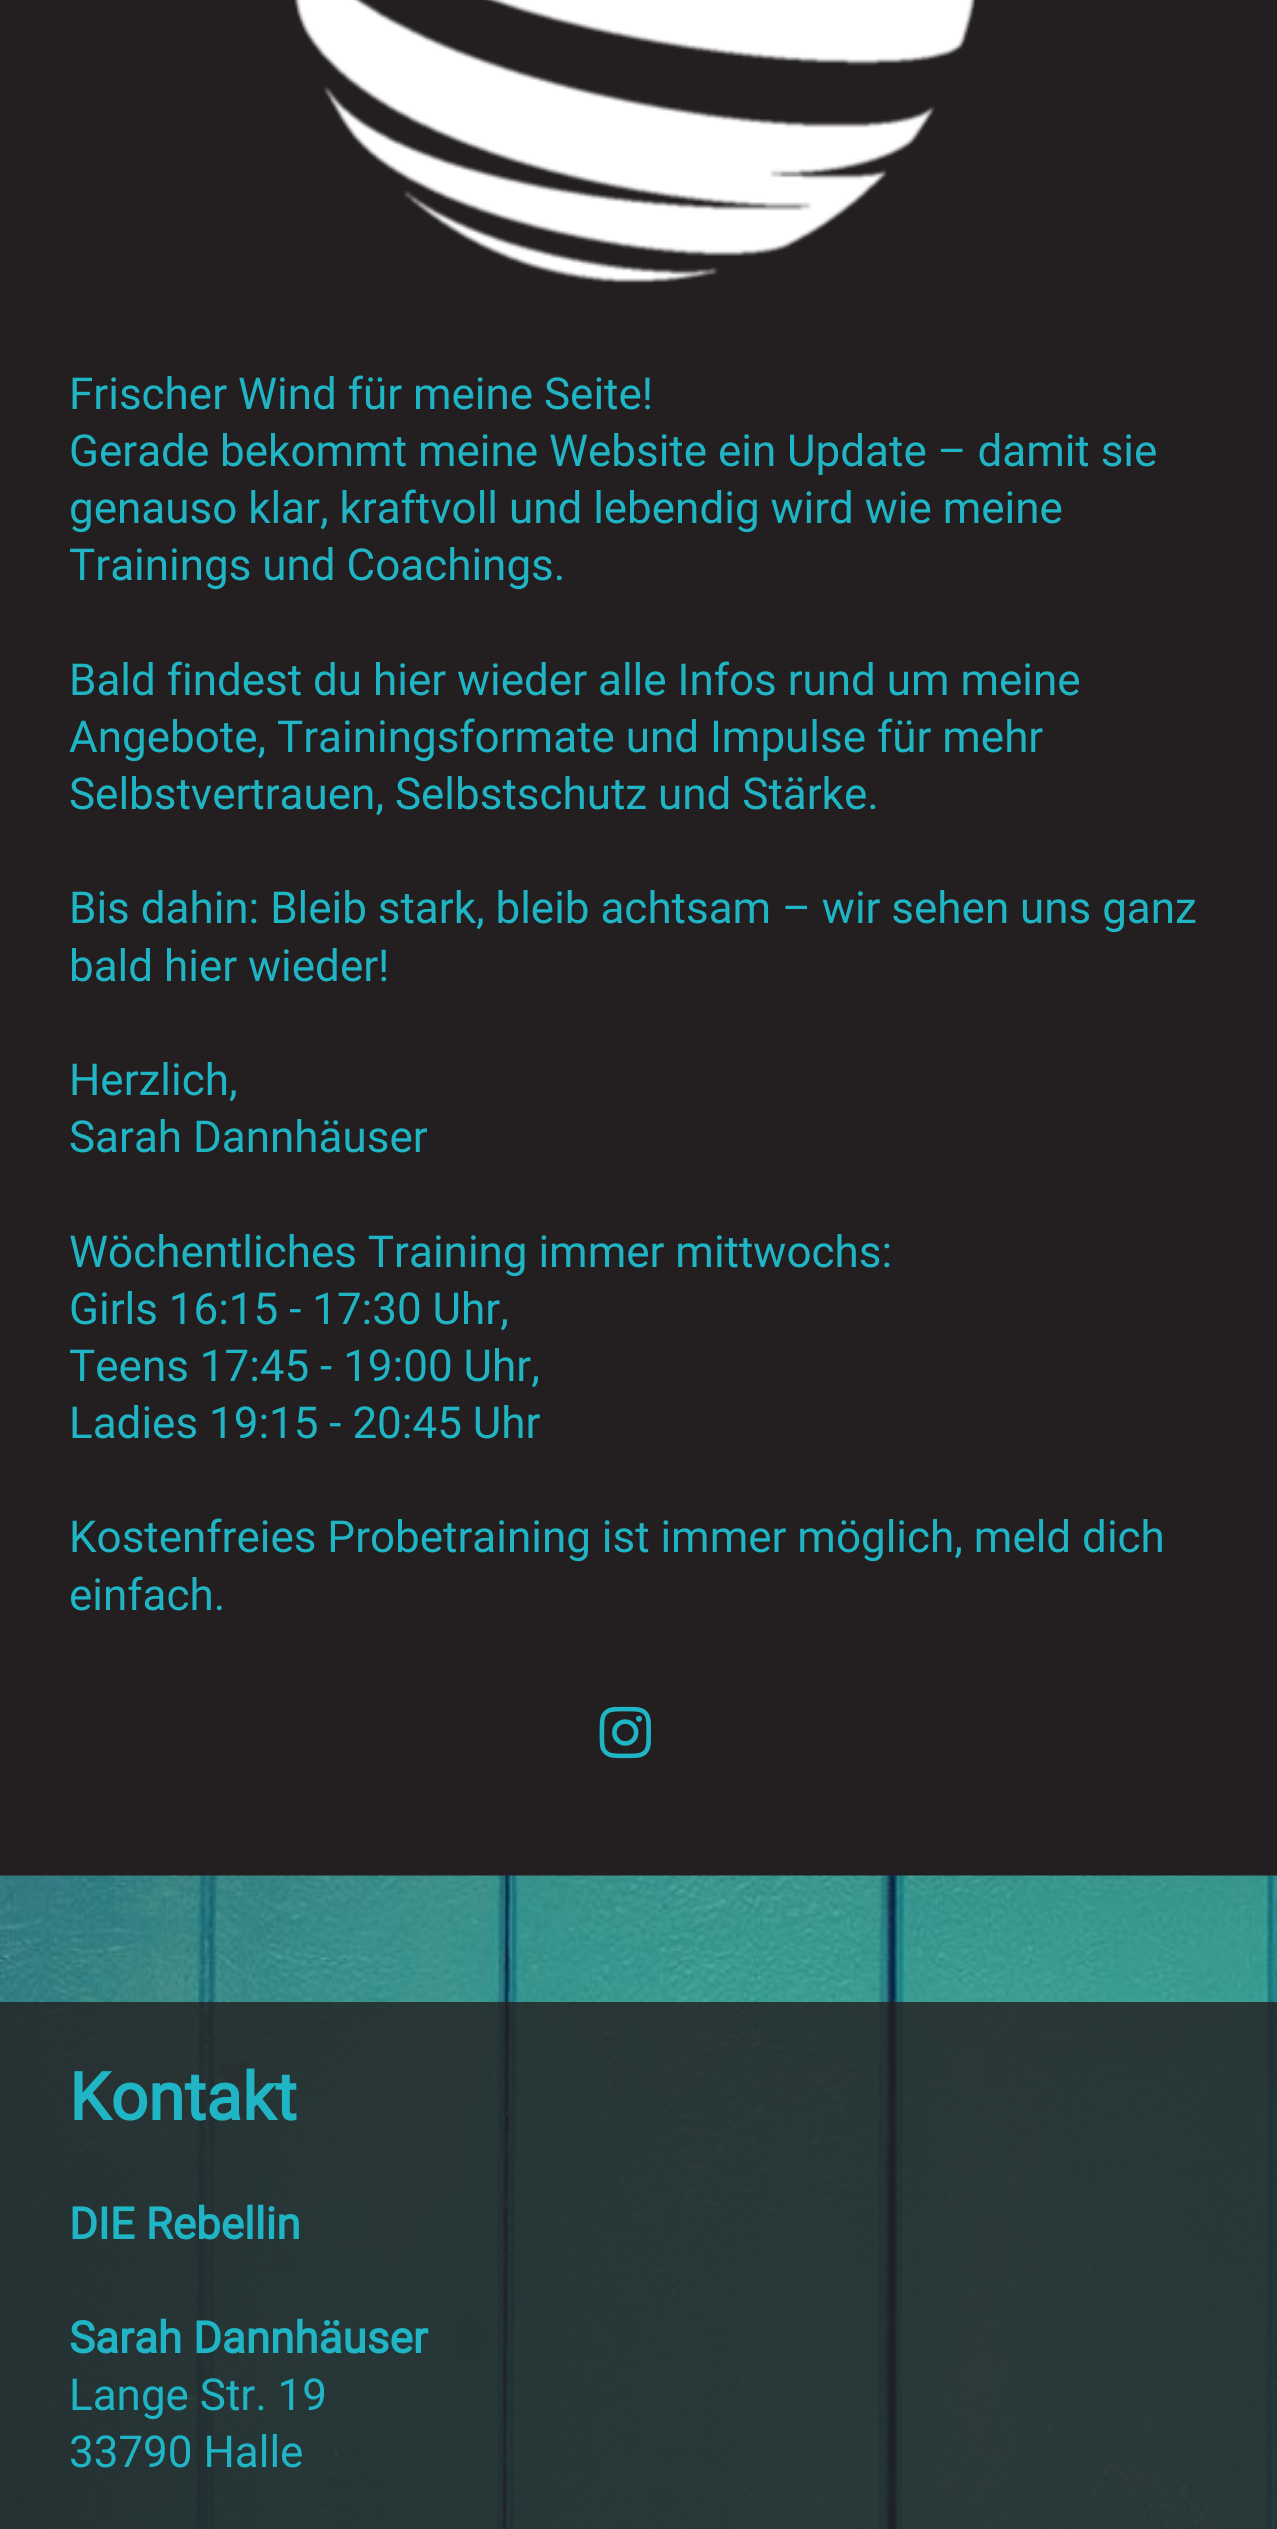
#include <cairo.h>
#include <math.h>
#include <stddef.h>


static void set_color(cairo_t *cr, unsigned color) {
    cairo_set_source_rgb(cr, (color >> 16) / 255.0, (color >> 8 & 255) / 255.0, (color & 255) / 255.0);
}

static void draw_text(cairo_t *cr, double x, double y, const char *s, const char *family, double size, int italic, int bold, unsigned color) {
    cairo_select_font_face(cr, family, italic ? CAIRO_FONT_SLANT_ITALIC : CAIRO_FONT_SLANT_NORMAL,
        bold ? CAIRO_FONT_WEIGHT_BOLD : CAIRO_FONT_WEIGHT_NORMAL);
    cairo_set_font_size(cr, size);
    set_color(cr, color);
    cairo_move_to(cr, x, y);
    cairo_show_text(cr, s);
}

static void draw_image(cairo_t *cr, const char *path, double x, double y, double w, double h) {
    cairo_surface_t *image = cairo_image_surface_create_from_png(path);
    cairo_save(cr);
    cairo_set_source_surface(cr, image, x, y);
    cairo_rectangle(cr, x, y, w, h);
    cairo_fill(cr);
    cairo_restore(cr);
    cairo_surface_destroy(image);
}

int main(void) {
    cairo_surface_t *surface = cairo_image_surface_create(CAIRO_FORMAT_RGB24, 1277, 2529);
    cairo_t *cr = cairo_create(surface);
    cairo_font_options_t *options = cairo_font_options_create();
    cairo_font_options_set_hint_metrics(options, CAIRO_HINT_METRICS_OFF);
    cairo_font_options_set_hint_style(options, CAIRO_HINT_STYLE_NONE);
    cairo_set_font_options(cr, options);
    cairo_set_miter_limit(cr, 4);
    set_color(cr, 0x231F20);
    cairo_paint(cr);
    draw_image(cr, "assets/img1.png", 294, 0, 681, 284);
    draw_text(cr, 69, 409, "Frischer Wind für meine Seite!", "Roboto", 44, 0, 0, 0x1FB5C5);
    draw_text(cr, 69, 466, "Gerade bekommt meine Website ein Update – damit sie", "Roboto", 44, 0, 0, 0x1FB5C5);
    draw_text(cr, 69, 523, "genauso klar, kraftvoll und lebendig wird wie meine", "Roboto", 44, 0, 0, 0x1FB5C5);
    draw_text(cr, 69, 580, "Trainings und Coachings.", "Roboto", 44, 0, 0, 0x1FB5C5);
    draw_text(cr, 69, 695, "Bald findest du hier wieder alle Infos rund um meine", "Roboto", 44, 0, 0, 0x1FB5C5);
    draw_text(cr, 69, 752, "Angebote, Trainingsformate und Impulse für mehr", "Roboto", 44, 0, 0, 0x1FB5C5);
    draw_text(cr, 69, 809, "Selbstvertrauen, Selbstschutz und Stärke.", "Roboto", 44, 0, 0, 0x1FB5C5);
    draw_text(cr, 69, 923, "Bis dahin: Bleib stark, bleib achtsam – wir sehen uns ganz", "Roboto", 44, 0, 0, 0x1FB5C5);
    draw_text(cr, 69, 981, "bald hier wieder!", "Roboto", 44, 0, 0, 0x1FB5C5);
    draw_text(cr, 69, 1095, "Herzlich,", "Roboto", 44, 0, 0, 0x1FB5C5);
    draw_text(cr, 69, 1152, "Sarah Dannhäuser", "Roboto", 44, 0, 0, 0x1FB5C5);
    draw_text(cr, 69, 1267, "Wöchentliches Training immer mittwochs:", "Roboto", 44, 0, 0, 0x1FB5C5);
    draw_text(cr, 69, 1324, "Girls 16:15 - 17:30 Uhr,", "Roboto", 44, 0, 0, 0x1FB5C5);
    draw_text(cr, 69, 1381, "Teens 17:45 - 19:00 Uhr,", "Roboto", 44, 0, 0, 0x1FB5C5);
    draw_text(cr, 69, 1438, "Ladies 19:15 - 20:45 Uhr", "Roboto", 44, 0, 0, 0x1FB5C5);
    draw_text(cr, 69, 1552, "Kostenfreies Probetraining ist immer möglich, meld dich", "Roboto", 44, 0, 0, 0x1FB5C5);
    draw_text(cr, 69, 1610, "einfach.", "Roboto", 44, 0, 0, 0x1FB5C5);
    draw_image(cr, "assets/img2.png", 599, 1706, 52, 53);
    draw_image(cr, "assets/img3.png", 0, 1875, 1277, 654);
    cairo_set_source_rgba(cr, 0.137, 0.122, 0.125, 0.8);
    cairo_rectangle(cr, 0, 2002, 1277, 527);
    cairo_fill(cr);
    draw_text(cr, 69, 2120, "Kontakt", "Roboto", 66, 0, 1, 0x1FB5C5);
    draw_text(cr, 69, 2239, "DIE Rebellin", "Roboto", 44, 0, 1, 0x1FB5C5);
    draw_text(cr, 69, 2353, "Sarah Dannhäuser", "Roboto", 44, 0, 1, 0x1FB5C5);
    draw_text(cr, 69, 2410, "Lange Str. 19", "Roboto", 44, 0, 0, 0x1FB5C5);
    draw_text(cr, 69, 2467, "33790 Halle", "Roboto", 44, 0, 0, 0x1FB5C5);
    cairo_surface_write_to_png(surface, "output.png");
    cairo_font_options_destroy(options);
    cairo_destroy(cr);
    cairo_surface_destroy(surface);
    return 0;
}
